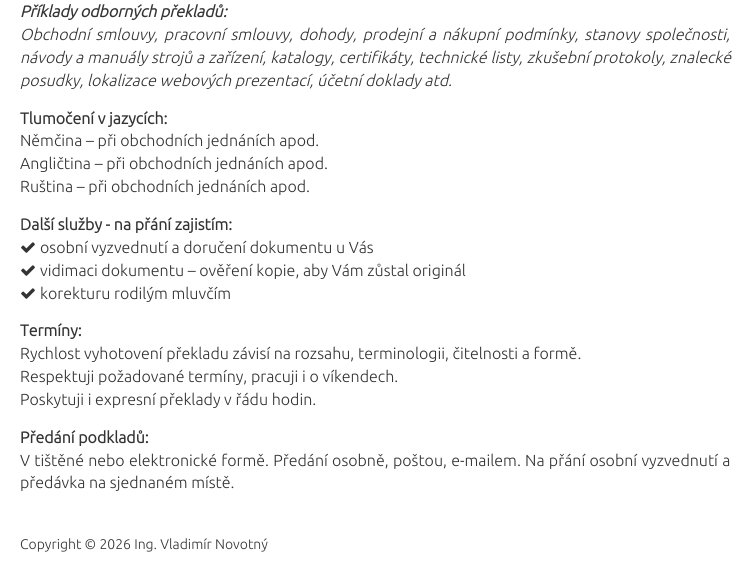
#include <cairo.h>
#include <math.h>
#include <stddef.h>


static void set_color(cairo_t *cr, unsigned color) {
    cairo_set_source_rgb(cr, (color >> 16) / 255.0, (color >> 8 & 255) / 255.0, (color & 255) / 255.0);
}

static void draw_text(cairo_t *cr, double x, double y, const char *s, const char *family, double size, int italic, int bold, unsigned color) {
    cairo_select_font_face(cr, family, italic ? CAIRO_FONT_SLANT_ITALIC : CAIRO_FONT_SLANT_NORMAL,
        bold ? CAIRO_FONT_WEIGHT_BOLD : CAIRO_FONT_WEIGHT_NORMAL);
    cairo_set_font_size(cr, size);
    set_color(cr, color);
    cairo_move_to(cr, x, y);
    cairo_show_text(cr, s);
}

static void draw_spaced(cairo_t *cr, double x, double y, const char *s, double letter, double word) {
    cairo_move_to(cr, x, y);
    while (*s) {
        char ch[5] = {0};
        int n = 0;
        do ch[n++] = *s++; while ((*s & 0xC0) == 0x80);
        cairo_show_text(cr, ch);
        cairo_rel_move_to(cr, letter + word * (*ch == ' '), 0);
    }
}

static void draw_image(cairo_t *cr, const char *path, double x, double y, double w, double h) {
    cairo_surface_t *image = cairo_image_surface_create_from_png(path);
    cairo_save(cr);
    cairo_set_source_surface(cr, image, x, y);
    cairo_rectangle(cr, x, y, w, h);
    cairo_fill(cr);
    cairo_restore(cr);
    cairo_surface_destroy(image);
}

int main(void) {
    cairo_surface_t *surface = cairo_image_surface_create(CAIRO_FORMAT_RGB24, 750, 574);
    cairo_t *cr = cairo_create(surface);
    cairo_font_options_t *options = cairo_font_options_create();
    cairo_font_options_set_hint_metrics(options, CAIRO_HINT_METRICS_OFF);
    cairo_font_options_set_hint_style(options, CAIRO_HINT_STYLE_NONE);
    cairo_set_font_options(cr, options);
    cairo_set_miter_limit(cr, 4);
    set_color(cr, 0xFFFFFF);
    cairo_paint(cr);
    draw_text(cr, 20, 17, "Příklady odborných překladů:", "Ubuntu", 16, 1, 1, 0x333333);
    cairo_select_font_face(cr, "Ubuntu Light", CAIRO_FONT_SLANT_ITALIC, CAIRO_FONT_WEIGHT_NORMAL);
    draw_spaced(cr, 20, 40, "Obchodní smlouvy, pracovní smlouvy, dohody, prodejní a nákupní podmínky, stanovy společnosti,", 0, 2.25);
    draw_spaced(cr, 20, 63, "návody a manuály strojů a zařízení, katalogy, certifikáty, technické listy, zkušební protokoly, znalecké", 0, 0.25);
    draw_text(cr, 20, 86, "posudky, lokalizace webových prezentací, účetní doklady atd.", "Ubuntu Light", 16, 1, 0, 0x333333);
    draw_text(cr, 20, 124, "Tlumočení v jazycích:", "Ubuntu", 16, 0, 1, 0x333333);
    draw_text(cr, 20, 146, "Němčina – při obchodních jednáních apod.", "Ubuntu Light", 16, 0, 0, 0x333333);
    draw_text(cr, 20, 169, "Angličtina – při obchodních jednáních apod.", "Ubuntu Light", 16, 0, 0, 0x333333);
    draw_text(cr, 20, 192, "Ruština – při obchodních jednáních apod.", "Ubuntu Light", 16, 0, 0, 0x333333);
    draw_text(cr, 20, 230, "Další služby - na přání zajistím:", "Ubuntu", 16, 0, 1, 0x333333);
    draw_image(cr, "assets/img1.png", 21, 242, 14, 11);
    draw_text(cr, 40, 253, "osobní vyzvednutí a doručení dokumentu u Vás", "Ubuntu Light", 16, 0, 0, 0x333333);
    draw_image(cr, "assets/img1.png", 21, 265, 14, 11);
    draw_text(cr, 40, 276, "vidimaci dokumentu – ověření kopie, aby Vám zůstal originál", "Ubuntu Light", 16, 0, 0, 0x333333);
    draw_image(cr, "assets/img1.png", 21, 288, 14, 11);
    draw_text(cr, 40, 299, "korekturu rodilým mluvčím", "Ubuntu Light", 16, 0, 0, 0x333333);
    draw_text(cr, 20, 336, "Termíny:", "Ubuntu", 16, 0, 1, 0x333333);
    draw_text(cr, 20, 359, "Rychlost vyhotovení překladu závisí na rozsahu, terminologii, čitelnosti a formě.", "Ubuntu Light", 16, 0, 0, 0x333333);
    draw_text(cr, 20, 382, "Respektuji požadované termíny, pracuji i o víkendech.", "Ubuntu Light", 16, 0, 0, 0x333333);
    draw_text(cr, 20, 405, "Poskytuji i expresní překlady v řádu hodin.", "Ubuntu Light", 16, 0, 0, 0x333333);
    draw_text(cr, 20, 443, "Předání podkladů:", "Ubuntu", 16, 0, 1, 0x333333);
    cairo_select_font_face(cr, "Ubuntu Light", CAIRO_FONT_SLANT_NORMAL, CAIRO_FONT_WEIGHT_NORMAL);
    draw_spaced(cr, 20, 466, "V tištěné nebo elektronické formě. Předání osobně, poštou, e-mailem. Na přání osobní vyzvednutí a", 0, 0.6);
    draw_text(cr, 20, 488, "předávka na sjednaném místě.", "Ubuntu Light", 16, 0, 0, 0x333333);
    draw_text(cr, 20, 549, "Copyright © 2026 Ing. Vladimír Novotný", "Ubuntu Light", 14, 0, 0, 0x333333);
    cairo_surface_write_to_png(surface, "output.png");
    cairo_font_options_destroy(options);
    cairo_destroy(cr);
    cairo_surface_destroy(surface);
    return 0;
}
